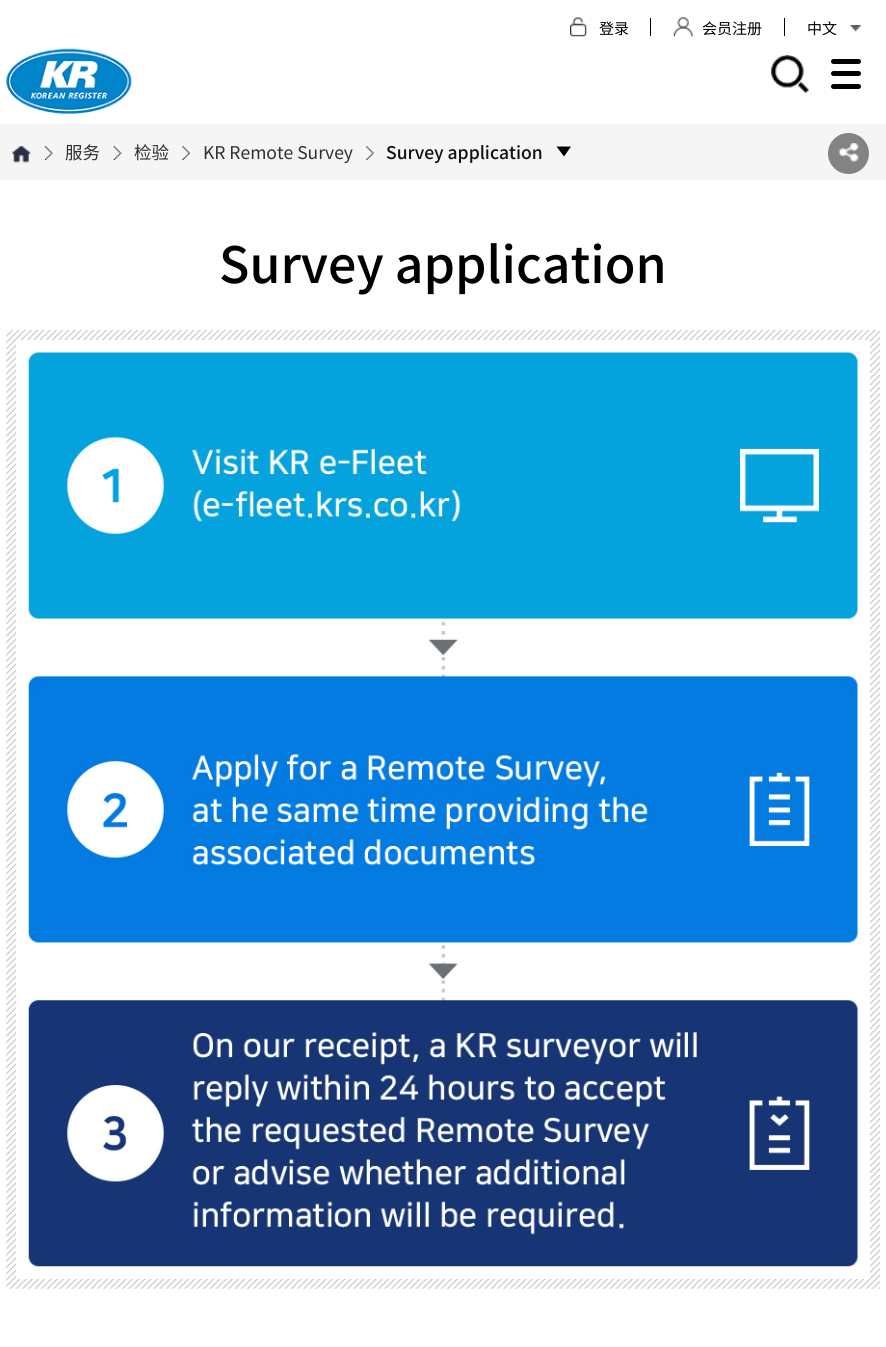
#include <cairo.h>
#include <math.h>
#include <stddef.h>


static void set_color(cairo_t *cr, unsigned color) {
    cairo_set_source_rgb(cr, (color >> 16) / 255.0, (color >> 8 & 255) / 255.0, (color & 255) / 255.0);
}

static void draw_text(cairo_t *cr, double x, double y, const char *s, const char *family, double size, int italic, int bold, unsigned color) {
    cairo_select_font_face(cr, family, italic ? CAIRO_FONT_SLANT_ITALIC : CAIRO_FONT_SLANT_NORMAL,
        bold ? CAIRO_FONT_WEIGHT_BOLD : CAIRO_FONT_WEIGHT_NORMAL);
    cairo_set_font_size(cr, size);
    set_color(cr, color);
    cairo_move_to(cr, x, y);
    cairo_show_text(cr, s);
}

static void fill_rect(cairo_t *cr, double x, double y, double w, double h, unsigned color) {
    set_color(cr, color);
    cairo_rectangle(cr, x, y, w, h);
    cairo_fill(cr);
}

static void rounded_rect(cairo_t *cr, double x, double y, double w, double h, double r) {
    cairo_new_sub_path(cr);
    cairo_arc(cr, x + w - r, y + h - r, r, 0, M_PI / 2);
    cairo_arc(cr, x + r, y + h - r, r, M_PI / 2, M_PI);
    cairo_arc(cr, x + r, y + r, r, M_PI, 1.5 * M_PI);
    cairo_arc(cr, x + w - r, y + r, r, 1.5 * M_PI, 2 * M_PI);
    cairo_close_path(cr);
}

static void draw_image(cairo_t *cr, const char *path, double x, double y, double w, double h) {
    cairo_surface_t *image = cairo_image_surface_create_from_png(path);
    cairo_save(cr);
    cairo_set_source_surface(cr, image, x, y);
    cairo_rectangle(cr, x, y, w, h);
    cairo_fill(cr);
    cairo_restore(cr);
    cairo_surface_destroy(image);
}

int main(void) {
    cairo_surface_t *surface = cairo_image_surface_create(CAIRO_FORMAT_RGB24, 886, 1347);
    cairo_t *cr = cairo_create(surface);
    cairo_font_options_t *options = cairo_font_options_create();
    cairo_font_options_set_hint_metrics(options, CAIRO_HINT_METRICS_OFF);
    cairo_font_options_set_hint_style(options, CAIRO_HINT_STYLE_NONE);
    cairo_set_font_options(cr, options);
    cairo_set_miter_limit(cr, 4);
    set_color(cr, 0xFFFFFF);
    cairo_paint(cr);
    draw_image(cr, "assets/img1.png", 570, 17, 17, 20);
    draw_text(cr, 599, 34, "登录", "Noto Sans SC", 15, 0, 0, 0x000000);
    fill_rect(cr, 650, 18, 1, 18, 0x000000);
    draw_image(cr, "assets/img2.png", 673, 17, 20, 20);
    draw_text(cr, 702, 34, "会员注册", "Noto Sans SC", 15, 0, 0, 0x000000);
    fill_rect(cr, 784, 18, 1, 18, 0x000000);
    draw_text(cr, 807, 34, "中文", "Noto Sans SC", 15, 0, 0, 0x000000);
    draw_image(cr, "assets/img3.png", 850, 25, 12, 7);
    draw_image(cr, "assets/img4.png", 6, 48, 126, 66);
    draw_image(cr, "assets/img5.png", 771, 55, 38, 38);
    rounded_rect(cr, 831, 59, 30, 5, 2.5);
    cairo_fill(cr);
    rounded_rect(cr, 831, 71, 30, 5, 2.5);
    cairo_fill(cr);
    rounded_rect(cr, 831, 84, 30, 5, 2.5);
    cairo_fill(cr);
    fill_rect(cr, 0, 124, 886, 56, 0xF5F5F5);
    draw_image(cr, "assets/img6.png", 12, 146, 19, 17);
    draw_image(cr, "assets/img7.png", 45, 146, 8, 14);
    draw_text(cr, 65, 159, "服务", "Noto Sans SC", 17.5, 0, 0, 0x303030);
    draw_image(cr, "assets/img8.png", 113, 146, 9, 14);
    draw_text(cr, 134, 159, "检验", "Noto Sans SC", 17.5, 0, 0, 0x303030);
    draw_image(cr, "assets/img9.png", 182, 146, 8, 14);
    draw_text(cr, 203, 159, "KR Remote Survey", "Noto Sans SC", 17.5, 0, 0, 0x303030);
    draw_image(cr, "assets/img10.png", 366, 146, 8, 14);
    draw_text(cr, 386, 159, "Survey application", "Noto Sans SC Medium", 17.5, 0, 0, 0x111111);
    set_color(cr, 0x000000);
    cairo_new_path(cr);
    cairo_move_to(cr, 556.5, 146.5);
    cairo_line_to(cr, 564, 156.5);
    cairo_line_to(cr, 571, 146.5);
    cairo_close_path(cr);
    cairo_fill(cr);
    set_color(cr, 0x848381);
    cairo_arc(cr, 848.5, 153.5, 20.5, 0, 2 * M_PI);
    cairo_fill(cr);
    draw_image(cr, "assets/img11.png", 838, 143, 21, 19);
    draw_text(cr, 219, 283, "Survey application", "Noto Sans SC Medium", 50, 0, 0, 0x000000);
    draw_image(cr, "assets/img12.png", 6, 330, 874, 959);
    fill_rect(cr, 16, 340, 854, 939, 0xFFFFFF);
    draw_image(cr, "assets/img13.png", 28, 352, 830, 915);
    cairo_surface_write_to_png(surface, "output.png");
    cairo_font_options_destroy(options);
    cairo_destroy(cr);
    cairo_surface_destroy(surface);
    return 0;
}
